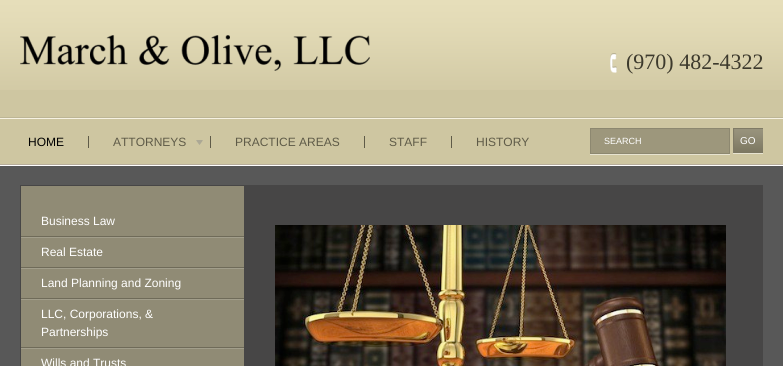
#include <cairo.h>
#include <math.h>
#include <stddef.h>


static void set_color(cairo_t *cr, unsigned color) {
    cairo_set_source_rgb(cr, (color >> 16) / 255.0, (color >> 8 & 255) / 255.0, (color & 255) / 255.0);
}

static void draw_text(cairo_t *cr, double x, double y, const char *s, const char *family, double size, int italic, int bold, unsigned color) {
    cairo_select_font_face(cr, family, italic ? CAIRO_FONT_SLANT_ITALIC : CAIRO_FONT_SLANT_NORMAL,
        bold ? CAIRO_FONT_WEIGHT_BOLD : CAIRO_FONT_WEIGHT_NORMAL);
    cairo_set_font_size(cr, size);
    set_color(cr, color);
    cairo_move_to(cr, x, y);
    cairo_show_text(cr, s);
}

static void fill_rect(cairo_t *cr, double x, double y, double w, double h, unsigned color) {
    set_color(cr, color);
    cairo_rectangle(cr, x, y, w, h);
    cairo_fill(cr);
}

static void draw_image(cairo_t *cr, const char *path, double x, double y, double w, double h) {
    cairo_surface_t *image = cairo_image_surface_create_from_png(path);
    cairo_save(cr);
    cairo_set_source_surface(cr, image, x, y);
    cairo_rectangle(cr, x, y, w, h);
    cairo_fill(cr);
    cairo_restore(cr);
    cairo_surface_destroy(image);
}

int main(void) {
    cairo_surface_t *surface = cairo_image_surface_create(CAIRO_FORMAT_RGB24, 783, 366);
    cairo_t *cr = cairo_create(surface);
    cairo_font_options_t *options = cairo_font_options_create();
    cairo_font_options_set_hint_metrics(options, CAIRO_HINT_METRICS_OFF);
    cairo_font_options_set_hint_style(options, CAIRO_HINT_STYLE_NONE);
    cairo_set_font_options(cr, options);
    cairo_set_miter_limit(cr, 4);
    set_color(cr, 0xCEC6A1);
    cairo_paint(cr);
    draw_image(cr, "assets/img1.png", 0, 0, 783, 90);
    draw_image(cr, "assets/img2.png", 20, 35, 350, 36);
    draw_image(cr, "assets/img3.png", 610, 53, 7, 20);
    draw_text(cr, 626, 69, "(970) 482-4322", "Liberation Serif", 22, 0, 0, 0x3D3A2D);
    fill_rect(cr, 0, 118, 783, 1, 0xF6F2E2);
    fill_rect(cr, 0, 117, 783, 1, 0xBDB695);
    fill_rect(cr, 88, 136, 1, 12, 0x5F5B48);
    draw_text(cr, 28, 146, "HOME", "Liberation Sans", 12, 0, 0, 0x000000);
    fill_rect(cr, 210, 136, 1, 12, 0x5F5B48);
    draw_text(cr, 113, 146, "ATTORNEYS", "Liberation Sans", 12, 0, 0, 0x5F5B48);
    draw_image(cr, "assets/img4.png", 196, 140, 7, 5);
    fill_rect(cr, 364, 136, 1, 12, 0x5F5B48);
    draw_text(cr, 235, 146, "PRACTICE AREAS", "Liberation Sans", 12, 0, 0, 0x5F5B48);
    fill_rect(cr, 451, 136, 1, 12, 0x5F5B48);
    draw_text(cr, 389, 146, "STAFF", "Liberation Sans", 12, 0, 0, 0x5F5B48);
    draw_text(cr, 476, 146, "HISTORY", "Liberation Sans", 12, 0, 0, 0x5F5B48);
    fill_rect(cr, 590, 154, 140, 1, 0xE7E3D0);
    set_color(cr, 0x9D977C);
    cairo_rectangle(cr, 590.5, 128.5, 139, 25);
    cairo_fill_preserve(cr);
    set_color(cr, 0x8D8870);
    cairo_set_line_width(cr, 1);
    cairo_stroke(cr);
    draw_text(cr, 604, 144, "SEARCH", "Liberation Sans", 9, 0, 0, 0xFFFFFF);
    fill_rect(cr, 733, 153, 30, 1, 0xE7E3D0);
    draw_image(cr, "assets/img5.png", 733, 128, 30, 25);
    draw_text(cr, 740, 144, "GO", "Liberation Sans", 10, 0, 0, 0xFFFFFF);
    fill_rect(cr, 0, 166, 783, 200, 0x585858);
    fill_rect(cr, 0, 165, 783, 1, 0xFFFFFF);
    fill_rect(cr, 0, 164, 783, 1, 0xB8AE9C);
    fill_rect(cr, 20, 185, 743, 181, 0x474646);
    fill_rect(cr, 21, 186, 223, 180, 0x908B75);
    fill_rect(cr, 21, 237, 223, 1, 0xA29E8B);
    fill_rect(cr, 21, 236, 223, 1, 0x6F6B59);
    draw_text(cr, 41, 225, "Business Law", "Liberation Sans", 12, 0, 0, 0xFFFFFF);
    fill_rect(cr, 21, 268, 223, 1, 0xA29E8B);
    fill_rect(cr, 21, 267, 223, 1, 0x6F6B59);
    draw_text(cr, 41, 256, "Real Estate", "Liberation Sans", 12, 0, 0, 0xFFFFFF);
    fill_rect(cr, 21, 299, 223, 1, 0xA29E8B);
    fill_rect(cr, 21, 298, 223, 1, 0x6F6B59);
    draw_text(cr, 41, 287, "Land Planning and Zoning", "Liberation Sans", 12, 0, 0, 0xFFFFFF);
    fill_rect(cr, 21, 348, 223, 1, 0xA29E8B);
    fill_rect(cr, 21, 347, 223, 1, 0x6F6B59);
    draw_text(cr, 41, 318, "LLC, Corporations, &", "Liberation Sans", 12, 0, 0, 0xFFFFFF);
    draw_text(cr, 41, 336, "Partnerships", "Liberation Sans", 12, 0, 0, 0xFFFFFF);
    draw_text(cr, 41, 367, "Wills and Trusts", "Liberation Sans", 12, 0, 0, 0xFFFFFF);
    draw_image(cr, "assets/img6.png", 275, 225, 451, 141);
    cairo_surface_write_to_png(surface, "output.png");
    cairo_font_options_destroy(options);
    cairo_destroy(cr);
    cairo_surface_destroy(surface);
    return 0;
}
